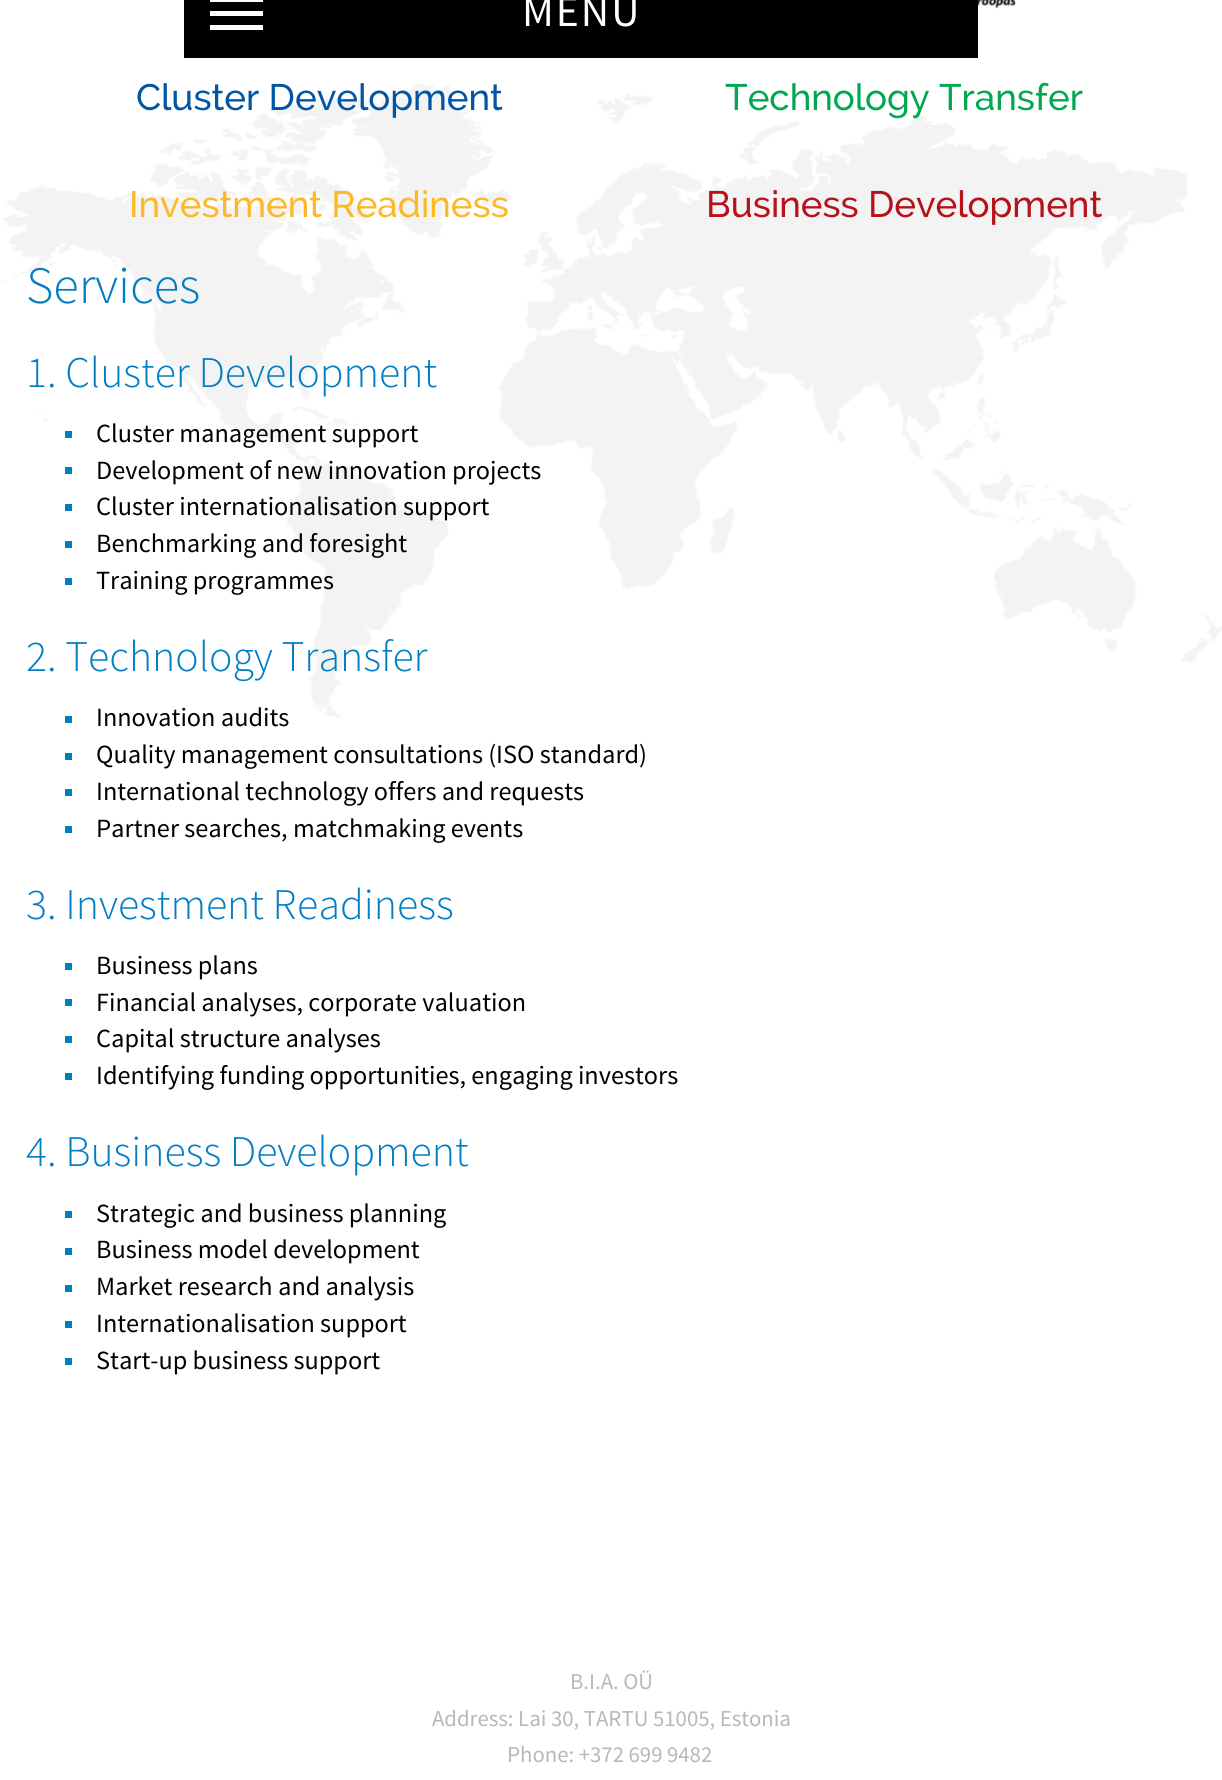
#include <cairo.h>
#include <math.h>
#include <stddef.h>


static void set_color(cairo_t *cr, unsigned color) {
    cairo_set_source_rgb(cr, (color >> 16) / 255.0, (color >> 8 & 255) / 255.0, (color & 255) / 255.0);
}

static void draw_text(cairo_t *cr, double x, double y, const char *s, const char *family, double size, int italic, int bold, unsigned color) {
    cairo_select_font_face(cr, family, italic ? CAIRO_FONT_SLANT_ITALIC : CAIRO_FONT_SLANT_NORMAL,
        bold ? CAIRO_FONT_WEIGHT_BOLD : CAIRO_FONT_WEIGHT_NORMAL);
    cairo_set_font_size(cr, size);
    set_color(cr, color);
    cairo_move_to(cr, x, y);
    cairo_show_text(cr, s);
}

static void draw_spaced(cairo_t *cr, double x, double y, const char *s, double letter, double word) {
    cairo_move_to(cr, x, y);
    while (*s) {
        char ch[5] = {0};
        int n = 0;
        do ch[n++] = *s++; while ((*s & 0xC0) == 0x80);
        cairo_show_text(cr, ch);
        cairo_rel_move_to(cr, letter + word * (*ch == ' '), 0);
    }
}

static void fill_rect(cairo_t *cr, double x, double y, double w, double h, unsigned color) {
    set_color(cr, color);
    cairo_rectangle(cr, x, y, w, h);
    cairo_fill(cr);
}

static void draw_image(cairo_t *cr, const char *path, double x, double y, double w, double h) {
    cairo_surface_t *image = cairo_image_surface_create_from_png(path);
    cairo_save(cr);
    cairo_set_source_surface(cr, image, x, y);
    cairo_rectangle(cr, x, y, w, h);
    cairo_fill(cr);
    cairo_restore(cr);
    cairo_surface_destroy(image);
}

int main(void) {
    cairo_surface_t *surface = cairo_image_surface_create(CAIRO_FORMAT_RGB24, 1222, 1780);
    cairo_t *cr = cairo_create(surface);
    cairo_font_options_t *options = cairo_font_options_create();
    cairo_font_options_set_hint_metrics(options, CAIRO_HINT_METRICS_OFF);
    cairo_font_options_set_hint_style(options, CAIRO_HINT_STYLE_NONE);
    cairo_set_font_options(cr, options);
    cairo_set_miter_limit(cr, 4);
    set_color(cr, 0xFFFFFF);
    cairo_paint(cr);
    fill_rect(cr, 184, 0, 794, 58, 0x000000);
    fill_rect(cr, 210, 11, 53, 5, 0xFFFFFF);
    fill_rect(cr, 210, 0, 53, 2, 0xFFFFFF);
    fill_rect(cr, 210, 25, 53, 5, 0xFFFFFF);
    cairo_select_font_face(cr, "Source Sans Pro", CAIRO_FONT_SLANT_NORMAL, CAIRO_FONT_WEIGHT_NORMAL);
    cairo_set_font_size(cr, 43.75);
    draw_spaced(cr, 522, 26, "MENU", 2, 0);
    draw_image(cr, "assets/img1.png", 978, 0, 38, 9);
    draw_image(cr, "assets/img2.png", 0, 83, 1222, 634);
    draw_text(cr, 136, 110, "Cluster Development", "Raleway Medium", 36.75, 0, 0, 0x0055A5);
    draw_text(cr, 725, 110, "Technology Transfer", "Raleway Medium", 36.75, 0, 0, 0x00A950);
    draw_text(cr, 129, 217, "Investment Readiness", "Raleway Medium", 36.75, 0, 0, 0xFDB827);
    draw_text(cr, 706, 217, "Business Development", "Raleway Medium", 36.75, 0, 0, 0xB5121B);
    draw_text(cr, 26, 303, "Services", "Source Sans Pro Light", 52.5, 0, 0, 0x007DC3);
    draw_text(cr, 26, 387, "1. Cluster Development", "Source Sans Pro Light", 43.75, 0, 0, 0x007DC3);
    fill_rect(cr, 65, 431, 7, 7, 0x007DC3);
    draw_text(cr, 96, 442, "Cluster management support", "Source Sans Pro", 26.25, 0, 0, 0x010101);
    fill_rect(cr, 65, 467, 7, 7, 0x007DC3);
    draw_text(cr, 96, 479, "Development of new innovation projects", "Source Sans Pro", 26.25, 0, 0, 0x010101);
    fill_rect(cr, 65, 504, 7, 7, 0x007DC3);
    draw_text(cr, 96, 515, "Cluster internationalisation support", "Source Sans Pro", 26.25, 0, 0, 0x010101);
    fill_rect(cr, 65, 541, 7, 7, 0x007DC3);
    draw_text(cr, 96, 552, "Benchmarking and foresight", "Source Sans Pro", 26.25, 0, 0, 0x010101);
    fill_rect(cr, 65, 578, 7, 7, 0x007DC3);
    draw_text(cr, 96, 589, "Training programmes", "Source Sans Pro", 26.25, 0, 0, 0x010101);
    draw_text(cr, 26, 671, "2. Technology Transfer", "Source Sans Pro Light", 43.75, 0, 0, 0x007DC3);
    fill_rect(cr, 65, 716, 7, 7, 0x007DC3);
    draw_text(cr, 96, 726, "Innovation audits", "Source Sans Pro", 26.25, 0, 0, 0x010101);
    fill_rect(cr, 65, 753, 7, 7, 0x007DC3);
    draw_text(cr, 96, 763, "Quality management consultations (ISO standard)", "Source Sans Pro", 26.25, 0, 0, 0x010101);
    fill_rect(cr, 65, 789, 7, 7, 0x007DC3);
    draw_text(cr, 96, 800, "International technology offers and requests", "Source Sans Pro", 26.25, 0, 0, 0x010101);
    fill_rect(cr, 65, 826, 7, 7, 0x007DC3);
    draw_text(cr, 96, 837, "Partner searches, matchmaking events", "Source Sans Pro", 26.25, 0, 0, 0x010101);
    draw_text(cr, 26, 919, "3. Investment Readiness", "Source Sans Pro Light", 43.75, 0, 0, 0x007DC3);
    fill_rect(cr, 65, 963, 7, 7, 0x007DC3);
    draw_text(cr, 96, 974, "Business plans", "Source Sans Pro", 26.25, 0, 0, 0x010101);
    fill_rect(cr, 65, 999, 7, 7, 0x007DC3);
    draw_text(cr, 96, 1011, "Financial analyses, corporate valuation", "Source Sans Pro", 26.25, 0, 0, 0x010101);
    fill_rect(cr, 65, 1036, 7, 7, 0x007DC3);
    draw_text(cr, 96, 1047, "Capital structure analyses", "Source Sans Pro", 26.25, 0, 0, 0x010101);
    fill_rect(cr, 65, 1073, 7, 7, 0x007DC3);
    draw_text(cr, 96, 1084, "Identifying funding opportunities, engaging investors", "Source Sans Pro", 26.25, 0, 0, 0x010101);
    draw_text(cr, 26, 1166, "4. Business Development", "Source Sans Pro Light", 43.75, 0, 0, 0x007DC3);
    fill_rect(cr, 65, 1211, 7, 7, 0x007DC3);
    draw_text(cr, 96, 1222, "Strategic and business planning", "Source Sans Pro", 26.25, 0, 0, 0x010101);
    fill_rect(cr, 65, 1248, 7, 7, 0x007DC3);
    draw_text(cr, 96, 1258, "Business model development", "Source Sans Pro", 26.25, 0, 0, 0x010101);
    fill_rect(cr, 65, 1285, 7, 7, 0x007DC3);
    draw_text(cr, 96, 1295, "Market research and analysis", "Source Sans Pro", 26.25, 0, 0, 0x010101);
    fill_rect(cr, 65, 1321, 7, 7, 0x007DC3);
    draw_text(cr, 96, 1332, "Internationalisation support", "Source Sans Pro", 26.25, 0, 0, 0x010101);
    fill_rect(cr, 65, 1358, 7, 7, 0x007DC3);
    draw_text(cr, 96, 1369, "Start-up business support", "Source Sans Pro", 26.25, 0, 0, 0x010101);
    draw_text(cr, 570, 1689, "B.I.A. OÜ", "Source Sans Pro", 22.75, 0, 0, 0xB8B8B8);
    draw_text(cr, 432, 1726, "Address: Lai 30, TARTU 51005, Estonia", "Source Sans Pro", 22.75, 0, 0, 0xB8B8B8);
    draw_text(cr, 507, 1762, "Phone: +372 699 9482", "Source Sans Pro", 22.75, 0, 0, 0xB8B8B8);
    cairo_surface_write_to_png(surface, "output.png");
    cairo_font_options_destroy(options);
    cairo_destroy(cr);
    cairo_surface_destroy(surface);
    return 0;
}
